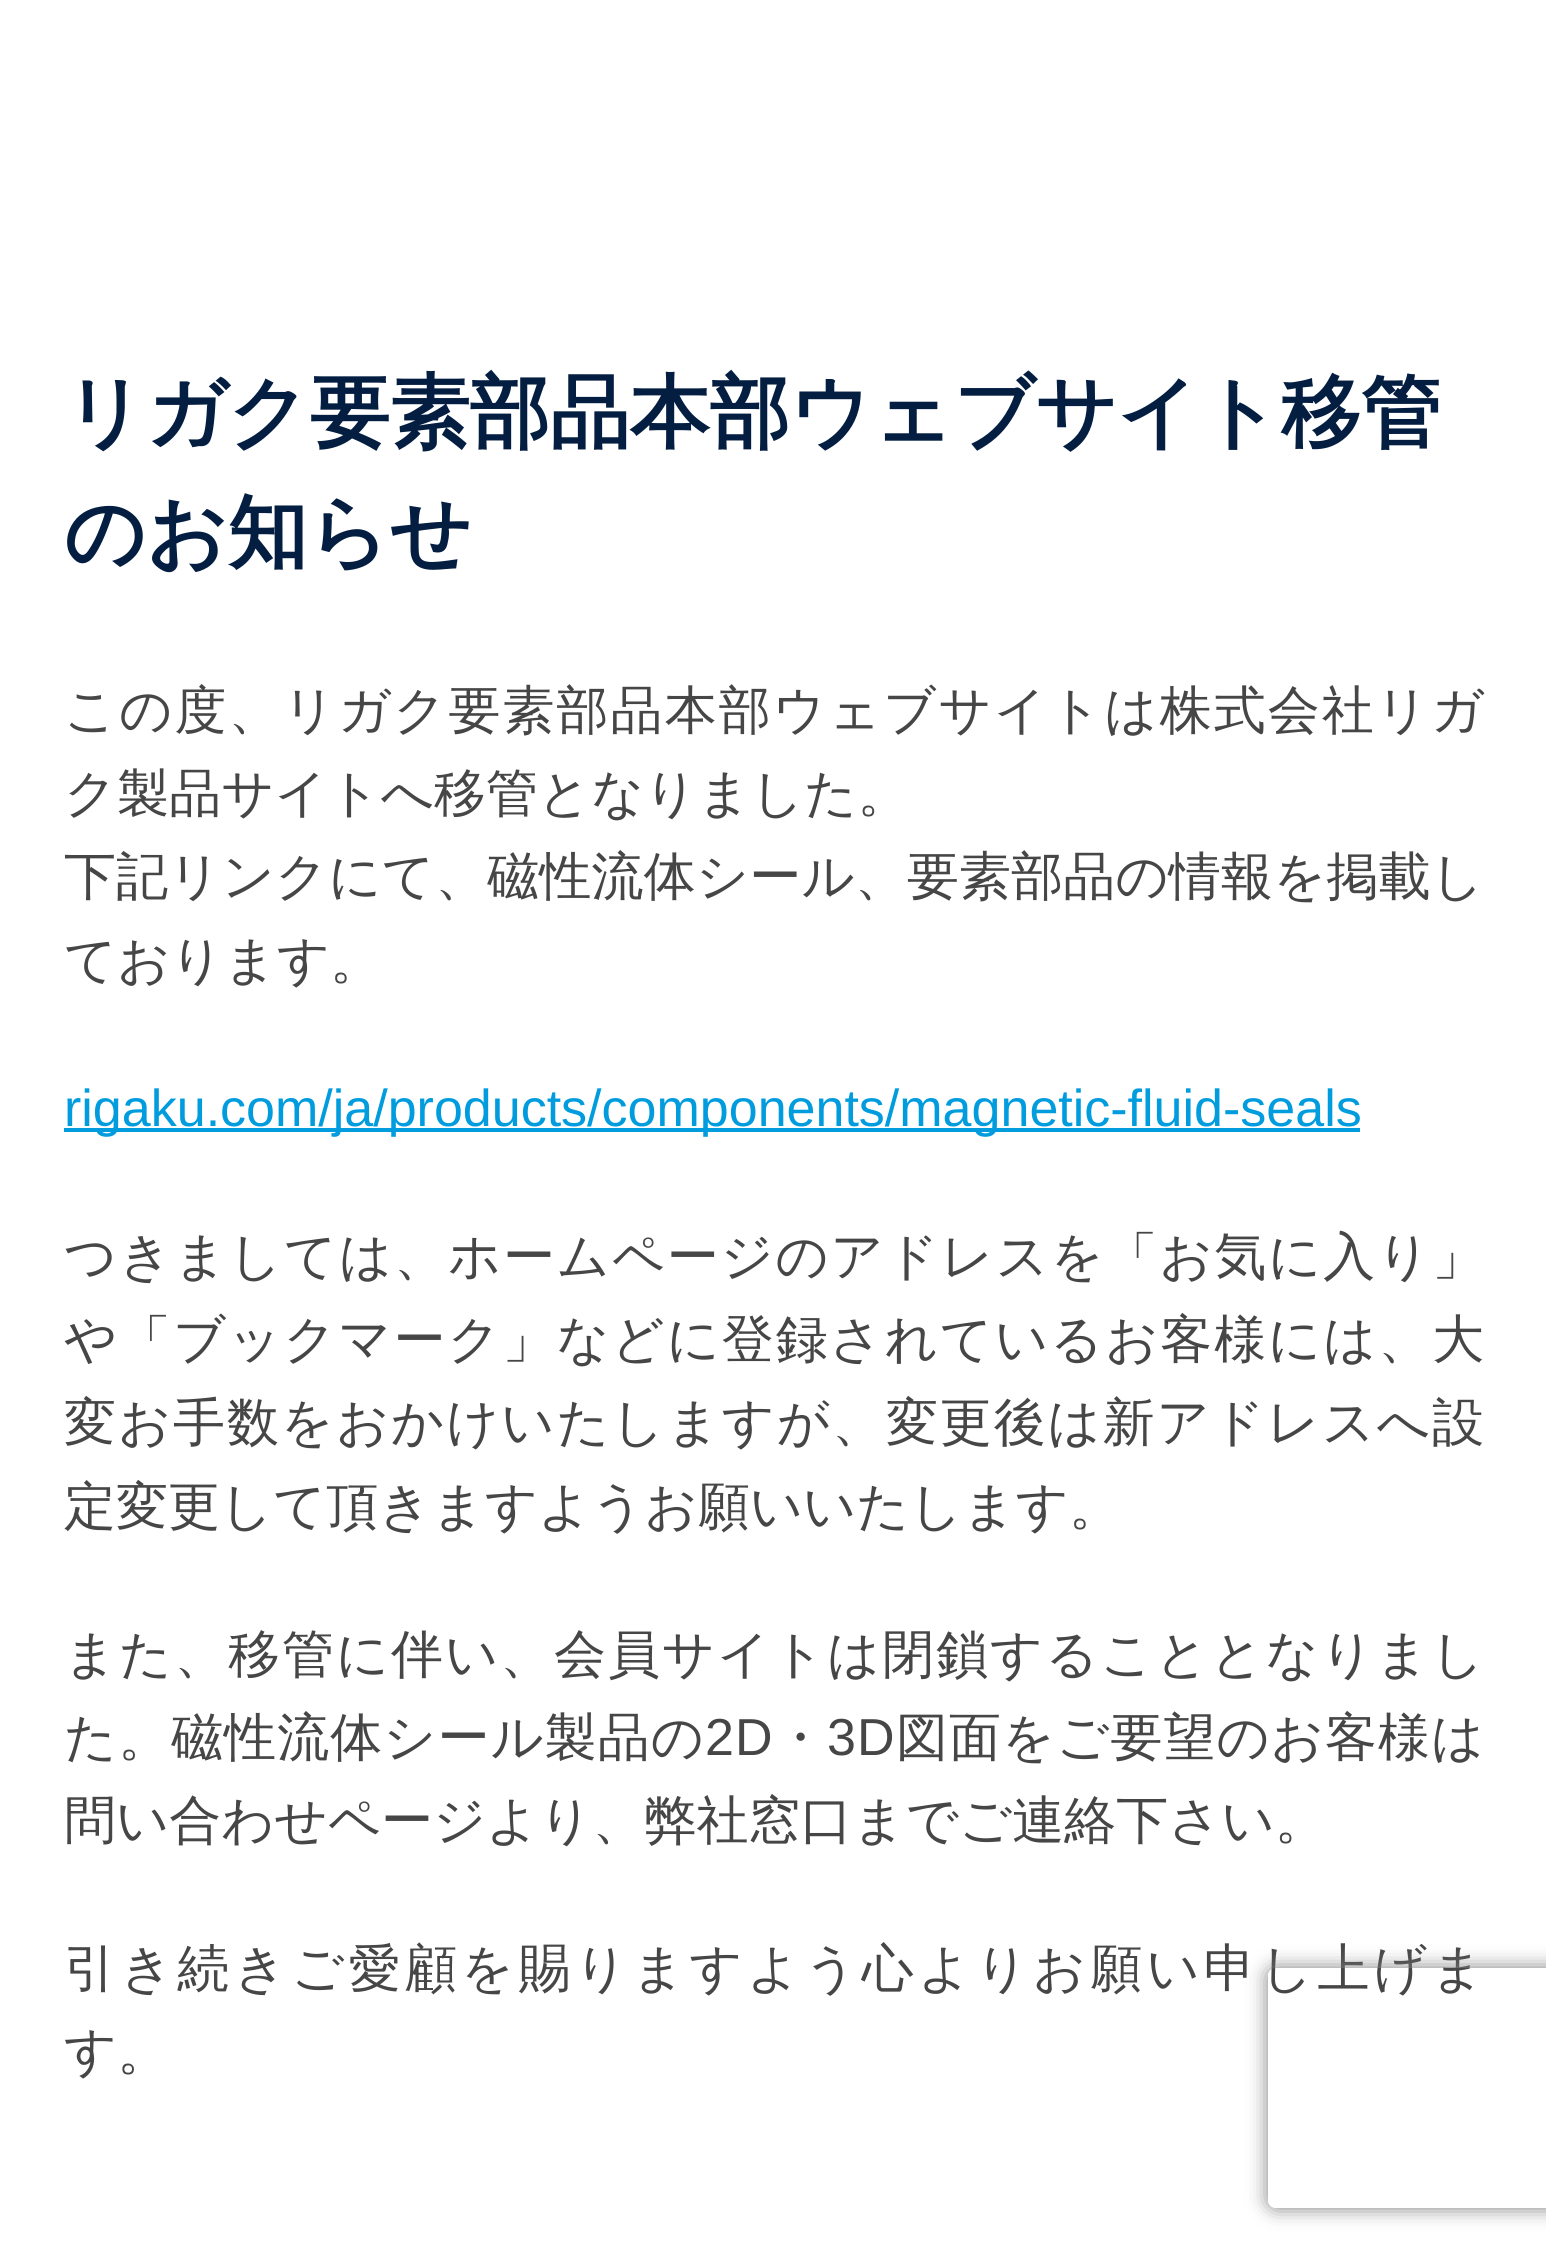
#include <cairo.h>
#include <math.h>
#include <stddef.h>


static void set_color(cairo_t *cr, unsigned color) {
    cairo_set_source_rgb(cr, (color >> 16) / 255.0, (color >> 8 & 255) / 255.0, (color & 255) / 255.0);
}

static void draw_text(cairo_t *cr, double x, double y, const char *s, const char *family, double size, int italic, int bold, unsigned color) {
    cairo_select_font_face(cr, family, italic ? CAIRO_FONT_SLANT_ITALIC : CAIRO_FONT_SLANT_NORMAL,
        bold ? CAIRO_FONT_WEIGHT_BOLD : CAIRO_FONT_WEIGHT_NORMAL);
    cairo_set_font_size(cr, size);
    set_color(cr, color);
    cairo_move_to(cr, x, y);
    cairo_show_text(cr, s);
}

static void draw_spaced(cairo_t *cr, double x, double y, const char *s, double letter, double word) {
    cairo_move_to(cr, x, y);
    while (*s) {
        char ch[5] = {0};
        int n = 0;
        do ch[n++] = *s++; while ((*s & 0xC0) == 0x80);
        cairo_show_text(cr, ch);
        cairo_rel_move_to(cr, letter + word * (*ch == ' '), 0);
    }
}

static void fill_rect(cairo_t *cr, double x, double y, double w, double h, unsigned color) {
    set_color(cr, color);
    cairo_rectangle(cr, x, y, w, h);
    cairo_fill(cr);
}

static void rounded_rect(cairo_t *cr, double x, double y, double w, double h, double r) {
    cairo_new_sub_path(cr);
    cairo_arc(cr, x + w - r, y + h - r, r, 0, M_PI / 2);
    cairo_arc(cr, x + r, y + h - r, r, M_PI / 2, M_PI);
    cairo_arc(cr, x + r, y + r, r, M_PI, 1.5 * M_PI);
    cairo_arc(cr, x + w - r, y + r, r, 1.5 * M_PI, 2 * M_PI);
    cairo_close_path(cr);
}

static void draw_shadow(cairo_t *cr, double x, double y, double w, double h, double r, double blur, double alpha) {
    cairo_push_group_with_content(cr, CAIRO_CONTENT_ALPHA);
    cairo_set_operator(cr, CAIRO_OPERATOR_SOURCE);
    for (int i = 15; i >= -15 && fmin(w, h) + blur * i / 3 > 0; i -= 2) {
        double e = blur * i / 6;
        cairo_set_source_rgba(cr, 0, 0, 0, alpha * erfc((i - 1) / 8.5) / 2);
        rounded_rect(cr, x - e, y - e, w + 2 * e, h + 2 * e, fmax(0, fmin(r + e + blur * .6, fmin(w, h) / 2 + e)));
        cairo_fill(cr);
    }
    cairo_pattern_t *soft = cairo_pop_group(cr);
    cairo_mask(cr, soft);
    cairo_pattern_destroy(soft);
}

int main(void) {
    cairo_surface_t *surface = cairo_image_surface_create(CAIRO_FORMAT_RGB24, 1546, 2264);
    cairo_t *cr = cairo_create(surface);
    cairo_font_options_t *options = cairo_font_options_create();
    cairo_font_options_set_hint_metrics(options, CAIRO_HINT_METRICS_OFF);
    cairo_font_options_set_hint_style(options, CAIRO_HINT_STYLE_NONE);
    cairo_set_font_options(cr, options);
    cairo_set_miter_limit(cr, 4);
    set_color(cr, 0xFFFFFF);
    cairo_paint(cr);
    draw_text(cr, 64, 440, "リガク要素部品本部ウェブサイト移管", "WenQuanYi Zen Hei", 80, 0, 1, 0x041E42);
    draw_text(cr, 64, 560, "のお知らせ", "WenQuanYi Zen Hei", 80, 0, 1, 0x041E42);
    cairo_select_font_face(cr, "WenQuanYi Zen Hei Medium", CAIRO_FONT_SLANT_NORMAL, CAIRO_FONT_WEIGHT_NORMAL);
    cairo_set_font_size(cr, 52);
    set_color(cr, 0x464646);
    draw_spaced(cr, 64, 728, "この度、リガク要素部品本部ウェブサイトは株式会社リガ", 2.05, 0);
    draw_text(cr, 64, 811, "ク製品サイトへ移管となりました。", "WenQuanYi Zen Hei Medium", 52, 0, 0, 0x464646);
    draw_spaced(cr, 64, 894, "下記リンクにて、磁性流体シール、要素部品の情報を掲載し", 0.15, 0);
    draw_text(cr, 64, 978, "ております。", "WenQuanYi Zen Hei Medium", 52, 0, 0, 0x464646);
    fill_rect(cr, 64, 1128, 1296, 4, 0x009CDE);
    draw_text(cr, 64, 1126, "rigaku.com/ja/products/components/magnetic-fluid-seals", "Liberation Sans", 52, 0, 0, 0x009CDE);
    cairo_select_font_face(cr, "WenQuanYi Zen Hei Medium", CAIRO_FONT_SLANT_NORMAL, CAIRO_FONT_WEIGHT_NORMAL);
    set_color(cr, 0x464646);
    draw_spaced(cr, 64, 1274, "つきましては、ホームページのアドレスを「お気に入り」", 1.8, 0);
    draw_spaced(cr, 64, 1357, "や「ブックマーク」などに登録されているお客様には、大", 1.9, 0);
    draw_spaced(cr, 64, 1440, "変お手数をおかけいたしますが、変更後は新アドレスへ設", 1.9, 0);
    draw_text(cr, 64, 1524, "定変更して頂きますようお願いいたします。", "WenQuanYi Zen Hei Medium", 52, 0, 0, 0x464646);
    draw_spaced(cr, 64, 1672, "また、移管に伴い、会員サイトは閉鎖することとなりまし", 1.9, 0);
    draw_spaced(cr, 64, 1755, "た。磁性流体シール製品の", 1, 0);
    cairo_select_font_face(cr, "Liberation Sans", CAIRO_FONT_SLANT_NORMAL, CAIRO_FONT_WEIGHT_NORMAL);
    draw_spaced(cr, 705, 1755, "2D", 1, 0);
    cairo_select_font_face(cr, "WenQuanYi Zen Hei Medium", CAIRO_FONT_SLANT_NORMAL, CAIRO_FONT_WEIGHT_NORMAL);
    draw_spaced(cr, 774, 1755, "・", 1, 0);
    cairo_select_font_face(cr, "Liberation Sans", CAIRO_FONT_SLANT_NORMAL, CAIRO_FONT_WEIGHT_NORMAL);
    draw_spaced(cr, 827, 1755, "3D", 1, 0);
    cairo_select_font_face(cr, "WenQuanYi Zen Hei Medium", CAIRO_FONT_SLANT_NORMAL, CAIRO_FONT_WEIGHT_NORMAL);
    draw_spaced(cr, 896, 1755, "図面をご要望のお客様は", 1, 0);
    draw_text(cr, 64, 1838, "問い合わせページより、弊社窓口までご連絡下さい。", "WenQuanYi Zen Hei Medium", 52, 0, 0, 0x464646);
    draw_spaced(cr, 64, 1986, "引き続きご愛顧を賜りますよう心よりお願い申し上げま", 4.2, 0);
    draw_text(cr, 64, 2069, "す。", "WenQuanYi Zen Hei Medium", 52, 0, 0, 0x464646);
    cairo_save(cr);
    cairo_set_fill_rule(cr, CAIRO_FILL_RULE_EVEN_ODD);
    cairo_new_path(cr);
    cairo_move_to(cr, 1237, 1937);
    cairo_line_to(cr, 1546, 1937);
    cairo_line_to(cr, 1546, 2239);
    cairo_line_to(cr, 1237, 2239);
    cairo_close_path(cr);
    cairo_move_to(cr, 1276, 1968);
    cairo_line_to(cr, 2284, 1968);
    cairo_curve_to(cr, 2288.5, 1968, 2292, 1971.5, 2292, 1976);
    cairo_line_to(cr, 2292, 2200);
    cairo_curve_to(cr, 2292, 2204.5, 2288.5, 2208, 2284, 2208);
    cairo_line_to(cr, 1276, 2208);
    cairo_curve_to(cr, 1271.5, 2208, 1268, 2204.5, 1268, 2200);
    cairo_line_to(cr, 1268, 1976);
    cairo_curve_to(cr, 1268, 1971.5, 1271.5, 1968, 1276, 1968);
    cairo_close_path(cr);
    cairo_clip(cr);
    set_color(cr, 0x808080);
    draw_shadow(cr, 1268, 1968, 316, 240, 8, 10, 1);
    cairo_restore(cr);
    cairo_surface_write_to_png(surface, "output.png");
    cairo_font_options_destroy(options);
    cairo_destroy(cr);
    cairo_surface_destroy(surface);
    return 0;
}
